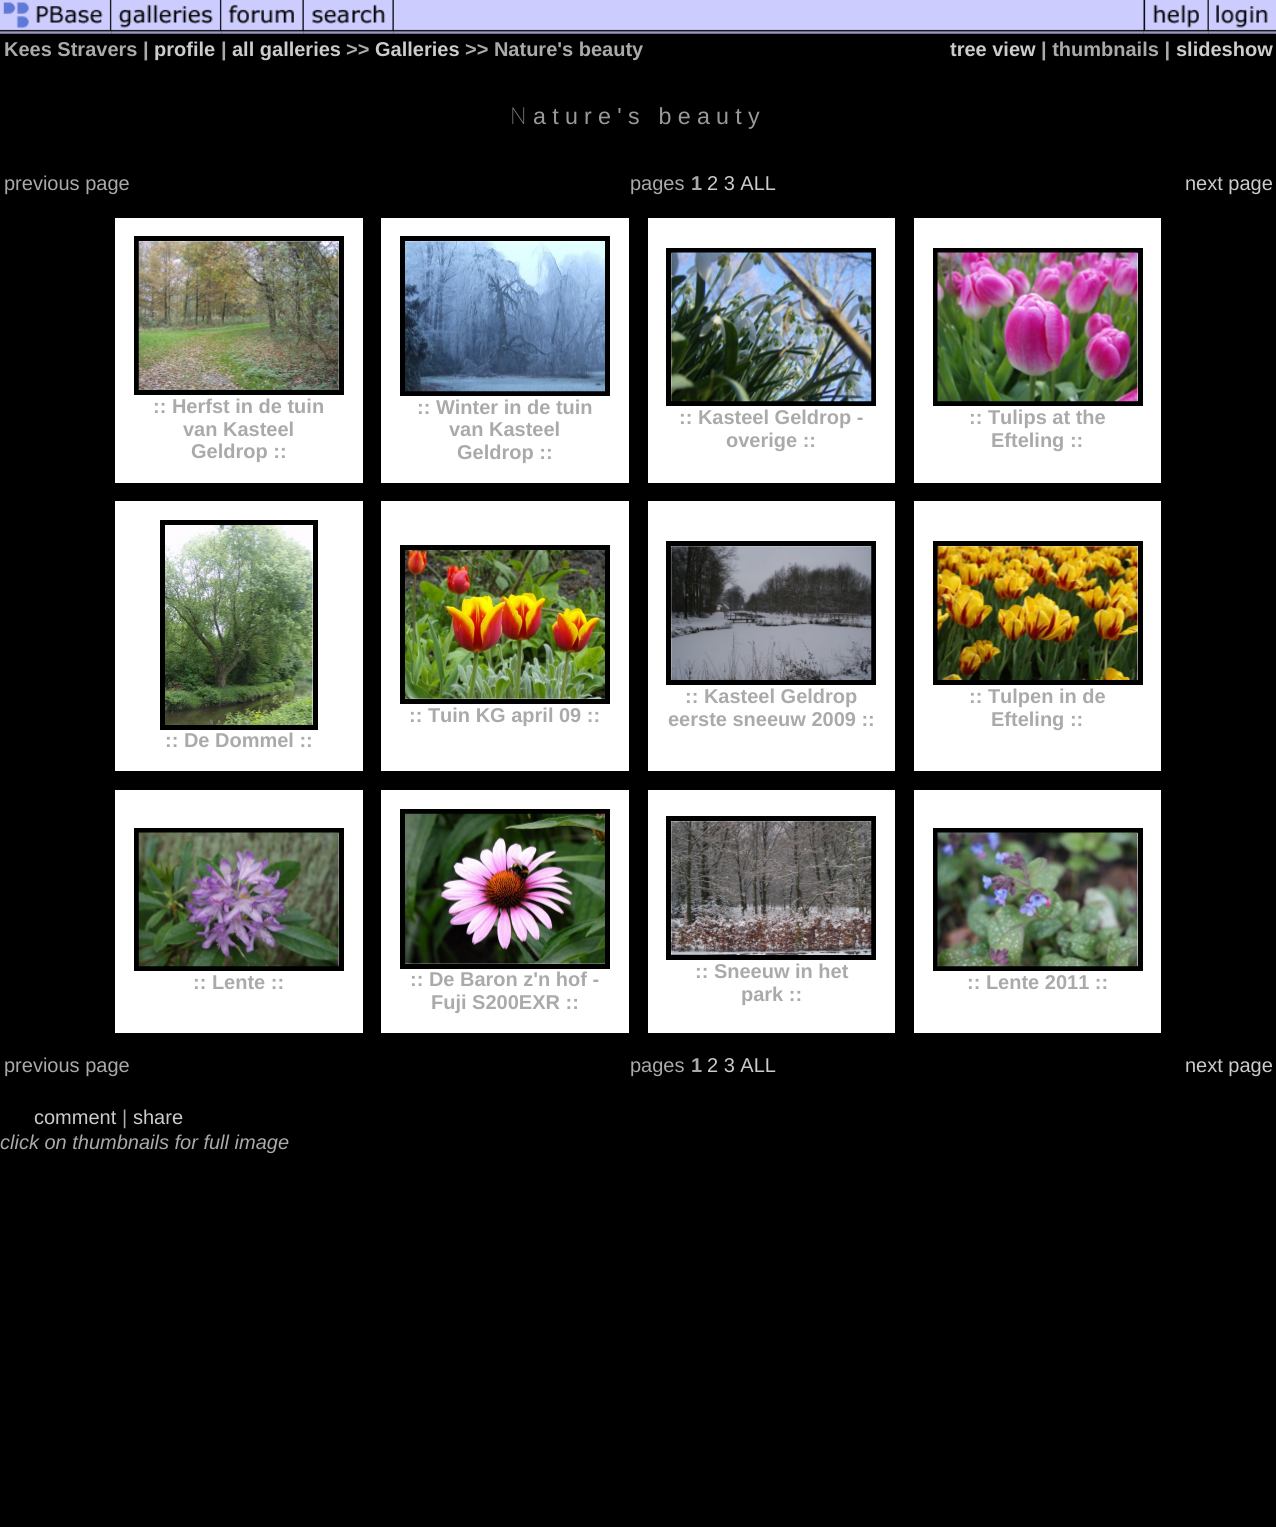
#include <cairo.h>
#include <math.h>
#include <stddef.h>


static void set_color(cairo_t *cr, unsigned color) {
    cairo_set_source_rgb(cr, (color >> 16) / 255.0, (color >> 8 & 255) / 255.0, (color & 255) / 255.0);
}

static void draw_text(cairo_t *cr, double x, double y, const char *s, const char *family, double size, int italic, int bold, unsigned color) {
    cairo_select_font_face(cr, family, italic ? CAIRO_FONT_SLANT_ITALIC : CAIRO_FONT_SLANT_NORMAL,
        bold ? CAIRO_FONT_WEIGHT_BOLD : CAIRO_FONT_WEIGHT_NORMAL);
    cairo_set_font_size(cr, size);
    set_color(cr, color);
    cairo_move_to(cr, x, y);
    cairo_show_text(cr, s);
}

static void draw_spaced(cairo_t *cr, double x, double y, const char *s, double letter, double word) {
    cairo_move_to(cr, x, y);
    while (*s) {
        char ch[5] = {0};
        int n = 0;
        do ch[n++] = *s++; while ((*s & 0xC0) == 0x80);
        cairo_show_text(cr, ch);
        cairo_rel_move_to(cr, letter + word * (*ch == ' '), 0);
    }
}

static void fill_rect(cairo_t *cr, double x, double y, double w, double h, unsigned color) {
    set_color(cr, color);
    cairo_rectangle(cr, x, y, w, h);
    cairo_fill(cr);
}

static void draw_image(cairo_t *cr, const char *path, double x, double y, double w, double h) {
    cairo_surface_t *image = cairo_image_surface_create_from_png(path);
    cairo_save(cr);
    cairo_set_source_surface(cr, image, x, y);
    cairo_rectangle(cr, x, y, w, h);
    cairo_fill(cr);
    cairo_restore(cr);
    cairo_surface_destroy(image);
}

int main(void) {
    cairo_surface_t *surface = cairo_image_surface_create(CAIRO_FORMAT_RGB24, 1276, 1527);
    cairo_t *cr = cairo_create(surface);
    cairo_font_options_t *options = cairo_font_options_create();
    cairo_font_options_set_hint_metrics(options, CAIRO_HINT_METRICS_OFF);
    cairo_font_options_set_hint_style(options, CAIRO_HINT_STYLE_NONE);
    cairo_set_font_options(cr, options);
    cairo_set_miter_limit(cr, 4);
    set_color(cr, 0x000000);
    cairo_paint(cr);
    draw_image(cr, "assets/img1.png", 0, 0, 112, 34);
    draw_image(cr, "assets/img2.png", 111, 0, 111, 34);
    draw_image(cr, "assets/img3.png", 221, 0, 83, 34);
    draw_image(cr, "assets/img4.png", 303, 0, 91, 34);
    draw_image(cr, "assets/img5.png", 393, 0, 751, 34);
    draw_image(cr, "assets/img6.png", 1143, 0, 66, 34);
    draw_image(cr, "assets/img7.png", 1208, 0, 68, 34);
    draw_text(cr, 4, 56, "Kees Stravers |", "Liberation Sans", 20, 0, 1, 0xAAAAAA);
    draw_text(cr, 154, 56, "profile", "Liberation Sans", 20, 0, 1, 0xCCCCCC);
    draw_text(cr, 221, 56, "|", "Liberation Sans", 20, 0, 1, 0xAAAAAA);
    draw_text(cr, 232, 56, "all galleries", "Liberation Sans", 20, 0, 1, 0xCCCCCC);
    draw_text(cr, 346, 56, ">>", "Liberation Sans", 20, 0, 1, 0xAAAAAA);
    draw_text(cr, 375, 56, "Galleries", "Liberation Sans", 20, 0, 1, 0xCCCCCC);
    draw_text(cr, 465, 56, ">> Nature's beauty", "Liberation Sans", 20, 0, 1, 0xAAAAAA);
    draw_text(cr, 950, 56, "tree view", "Liberation Sans", 20, 0, 1, 0xCCCCCC);
    draw_text(cr, 1041, 56, "| thumbnails |", "Liberation Sans", 20, 0, 1, 0xAAAAAA);
    draw_text(cr, 1176, 56, "slideshow", "Liberation Sans", 20, 0, 1, 0xCCCCCC);
    cairo_select_font_face(cr, "Noto Sans ExtraLight", CAIRO_FONT_SLANT_NORMAL, CAIRO_FONT_WEIGHT_NORMAL);
    cairo_set_font_size(cr, 23.25);
    set_color(cr, 0x777777);
    draw_spaced(cr, 510, 124, "N", 6.25, 0);
    cairo_select_font_face(cr, "Liberation Sans", CAIRO_FONT_SLANT_NORMAL, CAIRO_FONT_WEIGHT_NORMAL);
    set_color(cr, 0x999999);
    draw_spaced(cr, 533, 124, "ature's beauty", 6.25, 0);
    draw_text(cr, 4, 190, "previous page", "Liberation Sans", 20, 0, 0, 0xAAAAAA);
    draw_text(cr, 630, 190, "pages", "Liberation Sans", 20, 0, 0, 0xAAAAAA);
    draw_text(cr, 691, 190, "1", "Liberation Sans", 20, 0, 1, 0xAAAAAA);
    draw_text(cr, 707, 190, "2 3 ALL", "Liberation Sans", 20, 0, 0, 0xCCCCCC);
    draw_text(cr, 1185, 190, "next page", "Liberation Sans", 20, 0, 0, 0xCCCCCC);
    fill_rect(cr, 115, 218, 248, 265, 0xFFFFFF);
    cairo_rectangle(cr, 136.5, 238.5, 205, 154);
    set_color(cr, 0x000000);
    cairo_set_line_width(cr, 5);
    cairo_stroke(cr);
    draw_image(cr, "assets/img8.png", 138, 241, 201, 149);
    draw_text(cr, 153, 413, ":: Herfst in de tuin", "Liberation Sans", 20, 0, 1, 0xAAAAAA);
    draw_text(cr, 183, 436, "van Kasteel", "Liberation Sans", 20, 0, 1, 0xAAAAAA);
    draw_text(cr, 191, 458, "Geldrop ::", "Liberation Sans", 20, 0, 1, 0xAAAAAA);
    fill_rect(cr, 381, 218, 248, 265, 0xFFFFFF);
    cairo_rectangle(cr, 402.5, 238.5, 205, 155);
    set_color(cr, 0x000000);
    cairo_stroke(cr);
    draw_image(cr, "assets/img9.png", 405, 241, 200, 151);
    draw_text(cr, 417, 414, ":: Winter in de tuin", "Liberation Sans", 20, 0, 1, 0xAAAAAA);
    draw_text(cr, 449, 436, "van Kasteel", "Liberation Sans", 20, 0, 1, 0xAAAAAA);
    draw_text(cr, 457, 459, "Geldrop ::", "Liberation Sans", 20, 0, 1, 0xAAAAAA);
    fill_rect(cr, 648, 218, 247, 265, 0xFFFFFF);
    cairo_rectangle(cr, 668.5, 250.5, 205, 153);
    set_color(cr, 0x000000);
    cairo_stroke(cr);
    draw_image(cr, "assets/img10.png", 671, 252, 201, 150);
    draw_text(cr, 679, 424, ":: Kasteel Geldrop -", "Liberation Sans", 20, 0, 1, 0xAAAAAA);
    draw_text(cr, 726, 447, "overige ::", "Liberation Sans", 20, 0, 1, 0xAAAAAA);
    fill_rect(cr, 914, 218, 247, 265, 0xFFFFFF);
    cairo_rectangle(cr, 935.5, 250.5, 205, 153);
    set_color(cr, 0x000000);
    cairo_stroke(cr);
    draw_image(cr, "assets/img11.png", 937, 252, 201, 150);
    draw_text(cr, 969, 424, ":: Tulips at the", "Liberation Sans", 20, 0, 1, 0xAAAAAA);
    draw_text(cr, 991, 447, "Efteling ::", "Liberation Sans", 20, 0, 1, 0xAAAAAA);
    fill_rect(cr, 381, 501, 248, 270, 0xFFFFFF);
    cairo_rectangle(cr, 402.5, 547.5, 205, 154);
    set_color(cr, 0x000000);
    cairo_stroke(cr);
    draw_image(cr, "assets/img12.png", 405, 550, 200, 149);
    draw_text(cr, 409, 722, ":: Tuin KG april 09 ::", "Liberation Sans", 20, 0, 1, 0xAAAAAA);
    fill_rect(cr, 648, 501, 247, 270, 0xFFFFFF);
    cairo_rectangle(cr, 668.5, 543.5, 205, 139);
    set_color(cr, 0x000000);
    cairo_stroke(cr);
    draw_image(cr, "assets/img13.png", 671, 546, 201, 134);
    draw_text(cr, 685, 703, ":: Kasteel Geldrop", "Liberation Sans", 20, 0, 1, 0xAAAAAA);
    draw_text(cr, 668, 726, "eerste sneeuw 2009 ::", "Liberation Sans", 20, 0, 1, 0xAAAAAA);
    fill_rect(cr, 914, 501, 247, 270, 0xFFFFFF);
    cairo_rectangle(cr, 935.5, 543.5, 205, 139);
    set_color(cr, 0x000000);
    cairo_stroke(cr);
    draw_image(cr, "assets/img14.png", 937, 546, 201, 134);
    draw_text(cr, 969, 703, ":: Tulpen in de", "Liberation Sans", 20, 0, 1, 0xAAAAAA);
    draw_text(cr, 991, 726, "Efteling ::", "Liberation Sans", 20, 0, 1, 0xAAAAAA);
    fill_rect(cr, 115, 501, 248, 270, 0xFFFFFF);
    cairo_rectangle(cr, 162.5, 522.5, 153, 205);
    set_color(cr, 0x000000);
    cairo_stroke(cr);
    draw_image(cr, "assets/img15.png", 165, 525, 148, 200);
    draw_text(cr, 165, 747, ":: De Dommel ::", "Liberation Sans", 20, 0, 1, 0xAAAAAA);
    fill_rect(cr, 115, 790, 248, 243, 0xFFFFFF);
    cairo_rectangle(cr, 136.5, 830.5, 205, 138);
    set_color(cr, 0x000000);
    cairo_stroke(cr);
    draw_image(cr, "assets/img16.png", 138, 832, 201, 135);
    draw_text(cr, 193, 989, ":: Lente ::", "Liberation Sans", 20, 0, 1, 0xAAAAAA);
    fill_rect(cr, 381, 790, 248, 243, 0xFFFFFF);
    cairo_rectangle(cr, 402.5, 811.5, 205, 155);
    set_color(cr, 0x000000);
    cairo_stroke(cr);
    draw_image(cr, "assets/img17.png", 405, 813, 200, 151);
    draw_text(cr, 410, 986, ":: De Baron z'n hof -", "Liberation Sans", 20, 0, 1, 0xAAAAAA);
    draw_text(cr, 431, 1009, "Fuji S200EXR ::", "Liberation Sans", 20, 0, 1, 0xAAAAAA);
    fill_rect(cr, 648, 790, 247, 243, 0xFFFFFF);
    cairo_rectangle(cr, 668.5, 818.5, 205, 139);
    set_color(cr, 0x000000);
    cairo_stroke(cr);
    draw_image(cr, "assets/img18.png", 671, 821, 201, 134);
    draw_text(cr, 695, 978, ":: Sneeuw in het", "Liberation Sans", 20, 0, 1, 0xAAAAAA);
    draw_text(cr, 741, 1001, "park ::", "Liberation Sans", 20, 0, 1, 0xAAAAAA);
    fill_rect(cr, 914, 790, 247, 243, 0xFFFFFF);
    cairo_rectangle(cr, 935.5, 830.5, 205, 138);
    set_color(cr, 0x000000);
    cairo_stroke(cr);
    draw_image(cr, "assets/img19.png", 937, 832, 201, 135);
    draw_text(cr, 967, 989, ":: Lente 2011 ::", "Liberation Sans", 20, 0, 1, 0xAAAAAA);
    draw_text(cr, 4, 1072, "previous page", "Liberation Sans", 20, 0, 0, 0xAAAAAA);
    draw_text(cr, 630, 1072, "pages", "Liberation Sans", 20, 0, 0, 0xAAAAAA);
    draw_text(cr, 691, 1072, "1", "Liberation Sans", 20, 0, 1, 0xAAAAAA);
    draw_text(cr, 707, 1072, "2 3 ALL", "Liberation Sans", 20, 0, 0, 0xCCCCCC);
    draw_text(cr, 1185, 1072, "next page", "Liberation Sans", 20, 0, 0, 0xCCCCCC);
    draw_text(cr, 34, 1124, "comment", "Liberation Sans", 20, 0, 0, 0xCCCCCC);
    draw_text(cr, 122, 1124, "|", "Liberation Sans", 20, 0, 0, 0xAAAAAA);
    draw_text(cr, 133, 1124, "share", "Liberation Sans", 20, 0, 0, 0xCCCCCC);
    draw_text(cr, 0, 1149, "click on thumbnails for full image", "Liberation Sans", 20, 1, 0, 0xAAAAAA);
    cairo_surface_write_to_png(surface, "output.png");
    cairo_font_options_destroy(options);
    cairo_destroy(cr);
    cairo_surface_destroy(surface);
    return 0;
}
